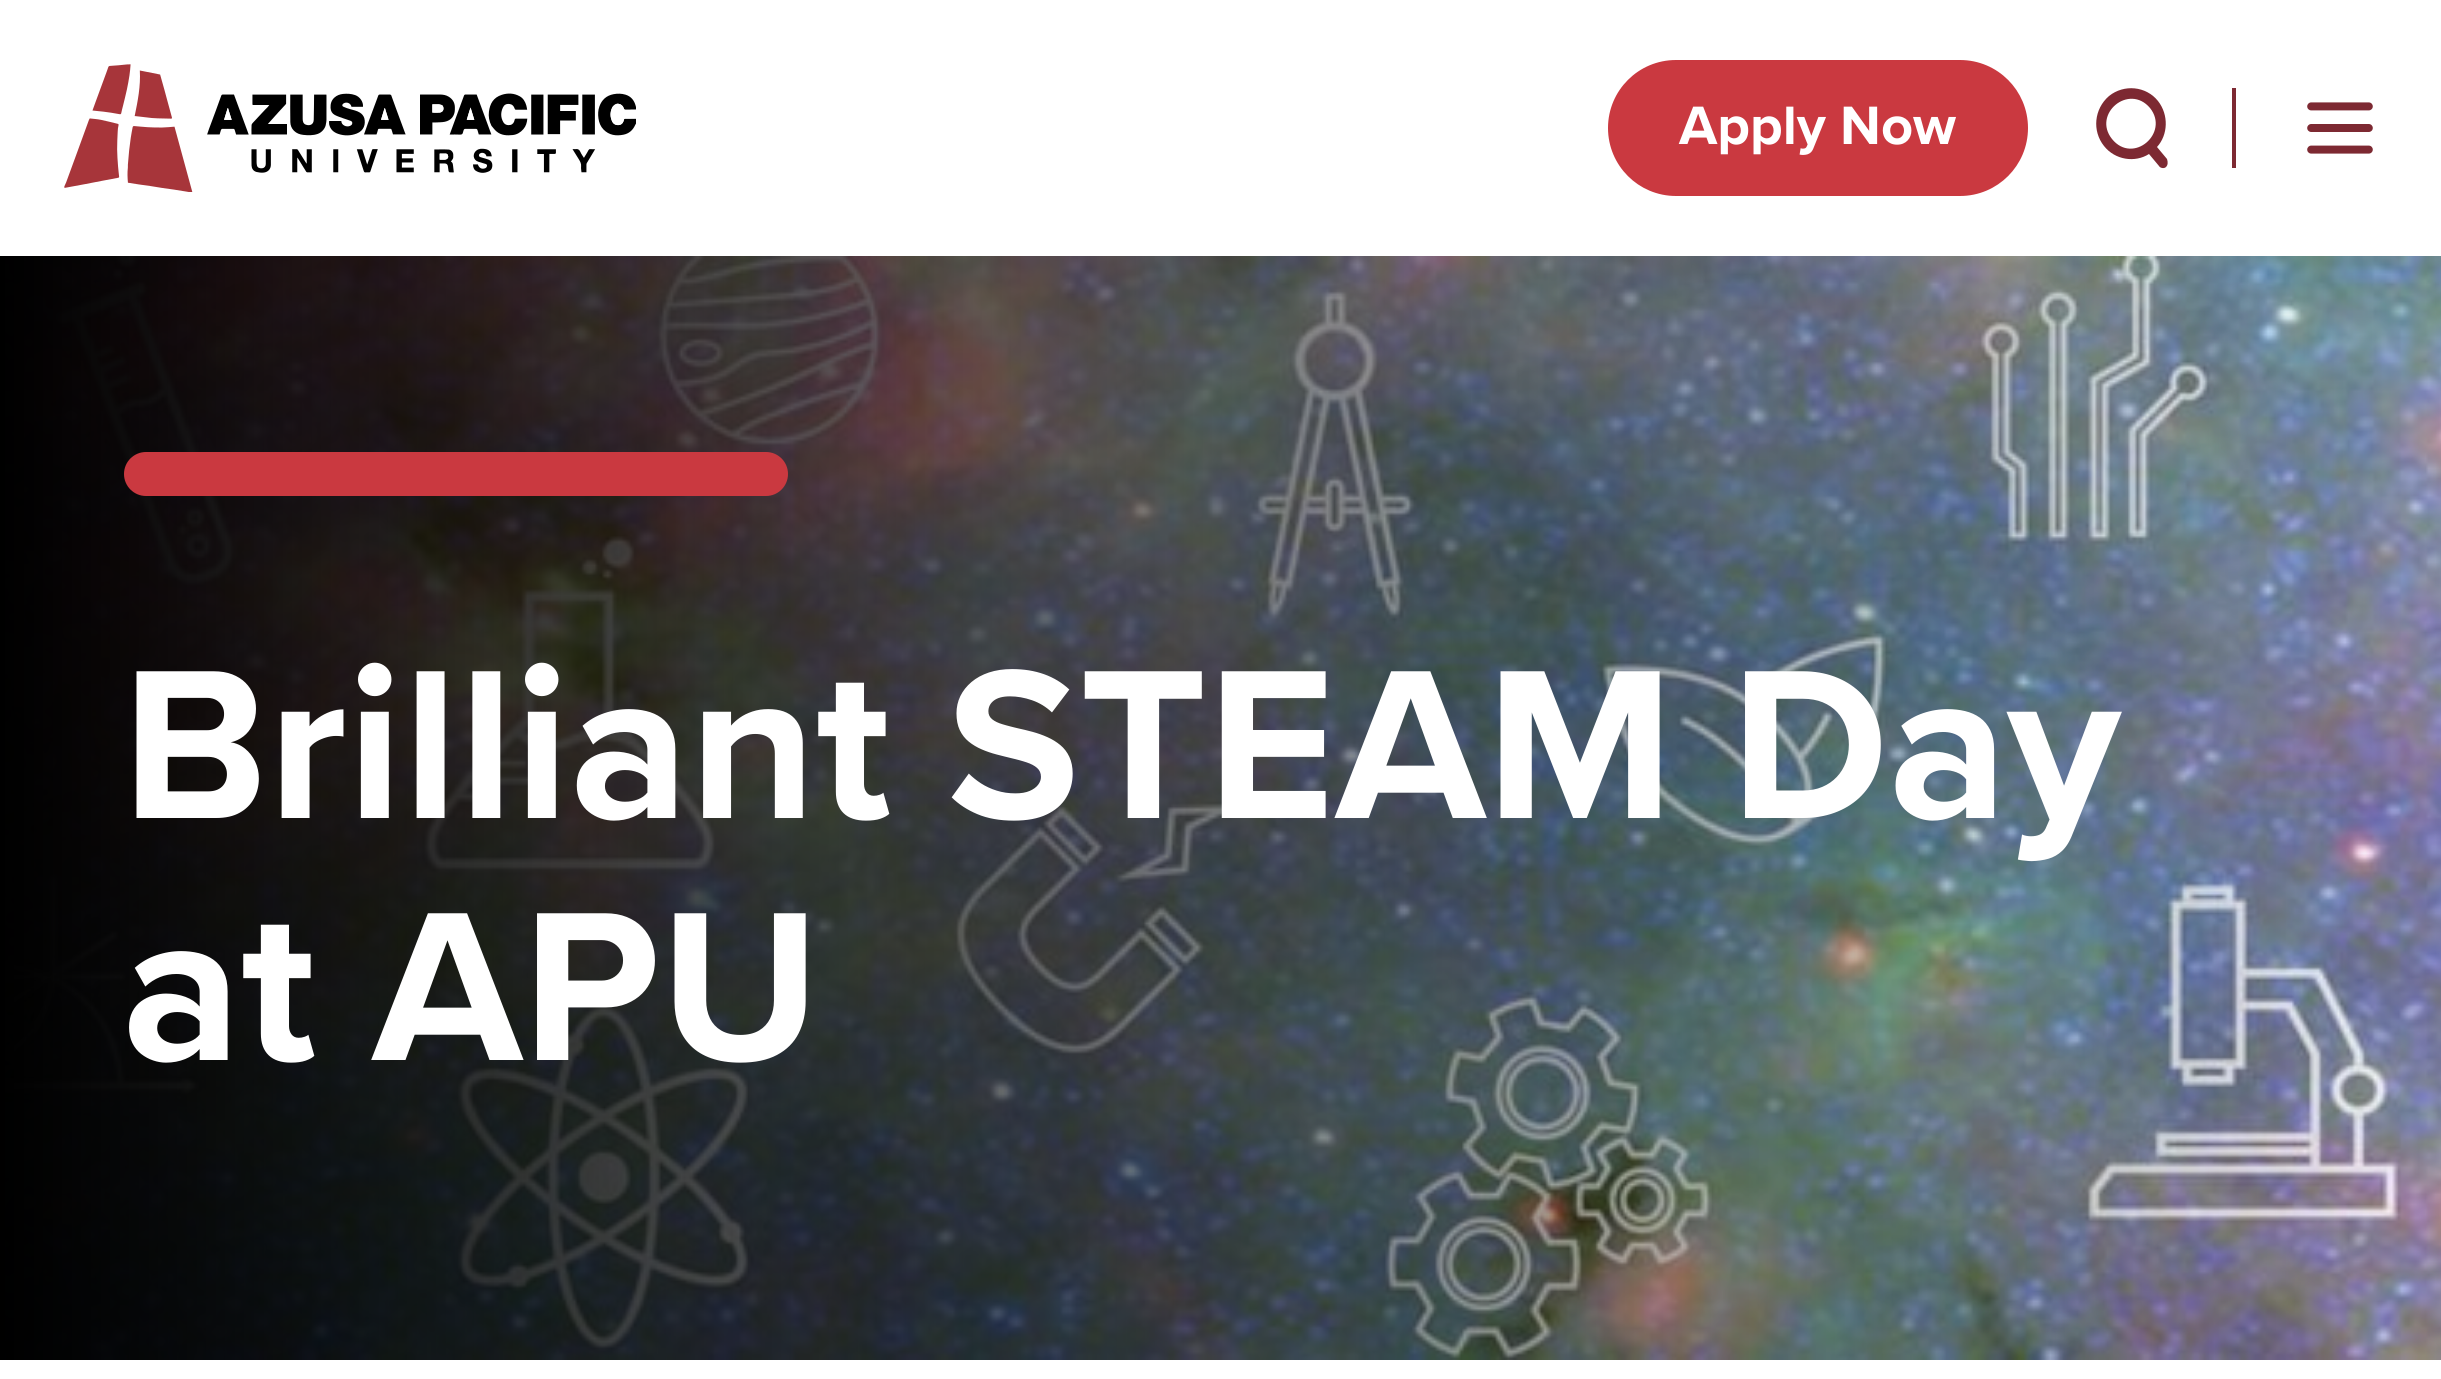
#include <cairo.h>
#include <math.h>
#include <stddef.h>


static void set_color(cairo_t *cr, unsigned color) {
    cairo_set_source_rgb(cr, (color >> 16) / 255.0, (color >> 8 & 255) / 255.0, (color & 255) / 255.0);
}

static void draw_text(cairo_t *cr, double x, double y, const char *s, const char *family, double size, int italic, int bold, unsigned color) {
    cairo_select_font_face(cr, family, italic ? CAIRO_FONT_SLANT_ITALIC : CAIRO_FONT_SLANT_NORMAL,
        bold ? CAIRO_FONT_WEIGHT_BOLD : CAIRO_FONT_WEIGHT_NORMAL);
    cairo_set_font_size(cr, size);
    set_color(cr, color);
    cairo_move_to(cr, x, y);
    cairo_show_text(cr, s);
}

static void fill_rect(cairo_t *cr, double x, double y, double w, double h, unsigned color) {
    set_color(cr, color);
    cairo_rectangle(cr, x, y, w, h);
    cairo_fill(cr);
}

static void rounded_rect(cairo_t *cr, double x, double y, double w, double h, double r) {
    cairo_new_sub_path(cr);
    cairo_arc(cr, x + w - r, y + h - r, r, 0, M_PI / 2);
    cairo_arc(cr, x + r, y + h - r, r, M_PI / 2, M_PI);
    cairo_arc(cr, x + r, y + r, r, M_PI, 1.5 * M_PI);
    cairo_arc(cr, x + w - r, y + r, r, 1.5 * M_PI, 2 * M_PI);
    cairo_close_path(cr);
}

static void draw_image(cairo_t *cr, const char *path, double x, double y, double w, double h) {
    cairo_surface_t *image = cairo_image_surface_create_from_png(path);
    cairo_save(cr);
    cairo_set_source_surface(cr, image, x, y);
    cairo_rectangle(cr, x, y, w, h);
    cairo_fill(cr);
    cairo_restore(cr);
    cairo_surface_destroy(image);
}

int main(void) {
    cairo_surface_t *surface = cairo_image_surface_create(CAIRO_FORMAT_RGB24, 2441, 1379);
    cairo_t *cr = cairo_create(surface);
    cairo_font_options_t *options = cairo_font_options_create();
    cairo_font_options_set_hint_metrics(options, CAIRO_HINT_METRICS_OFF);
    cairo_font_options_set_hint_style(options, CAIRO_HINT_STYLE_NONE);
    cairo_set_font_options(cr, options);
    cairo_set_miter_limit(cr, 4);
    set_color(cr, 0xFFFFFF);
    cairo_paint(cr);
    draw_image(cr, "assets/img1.png", 64, 64, 572, 128);
    set_color(cr, 0xCA3940);
    rounded_rect(cr, 1612, 64, 412, 128, 64);
    cairo_fill_preserve(cr);
    cairo_set_line_width(cr, 8);
    cairo_stroke(cr);
    draw_text(cr, 1679, 144, "Apply Now", "Proxima Nova", 56, 0, 1, 0xFFFFFF);
    set_color(cr, 0x7D2932);
    cairo_set_fill_rule(cr, CAIRO_FILL_RULE_EVEN_ODD);
    cairo_new_path(cr);
    cairo_move_to(cr, 2109, 96);
    cairo_curve_to(cr, 2094, 109, 2092, 131, 2104, 146);
    cairo_curve_to(cr, 2115, 160, 2135, 163, 2149, 154);
    cairo_line_to(cr, 2159, 166);
    cairo_curve_to(cr, 2160, 168, 2164, 169, 2166, 167);
    cairo_curve_to(cr, 2168, 165, 2168, 162, 2167, 159);
    cairo_line_to(cr, 2157, 147);
    cairo_curve_to(cr, 2168, 135, 2169, 115, 2158, 101);
    cairo_curve_to(cr, 2146, 86, 2124, 84, 2109, 96);
    cairo_close_path(cr);
    cairo_move_to(cr, 2112, 139);
    cairo_curve_to(cr, 2092, 114, 2129, 83, 2150, 108);
    cairo_curve_to(cr, 2170, 133, 2133, 165, 2112, 139);
    cairo_close_path(cr);
    cairo_fill(cr);
    fill_rect(cr, 2232, 88, 4, 80, 0x7D2932);
    draw_image(cr, "assets/img2.png", 2307, 102, 66, 52);
    draw_image(cr, "assets/img3.png", 0, 256, 2441, 1104);
    set_color(cr, 0xCA3940);
    rounded_rect(cr, 124, 452, 664, 44, 22);
    cairo_fill(cr);
    draw_text(cr, 122, 818, "Brilliant STEAM Day", "Proxima Nova", 220, 0, 1, 0xFFFFFF);
    draw_text(cr, 122, 1060, "at APU", "Proxima Nova", 220, 0, 1, 0xFFFFFF);
    cairo_surface_write_to_png(surface, "output.png");
    cairo_font_options_destroy(options);
    cairo_destroy(cr);
    cairo_surface_destroy(surface);
    return 0;
}
